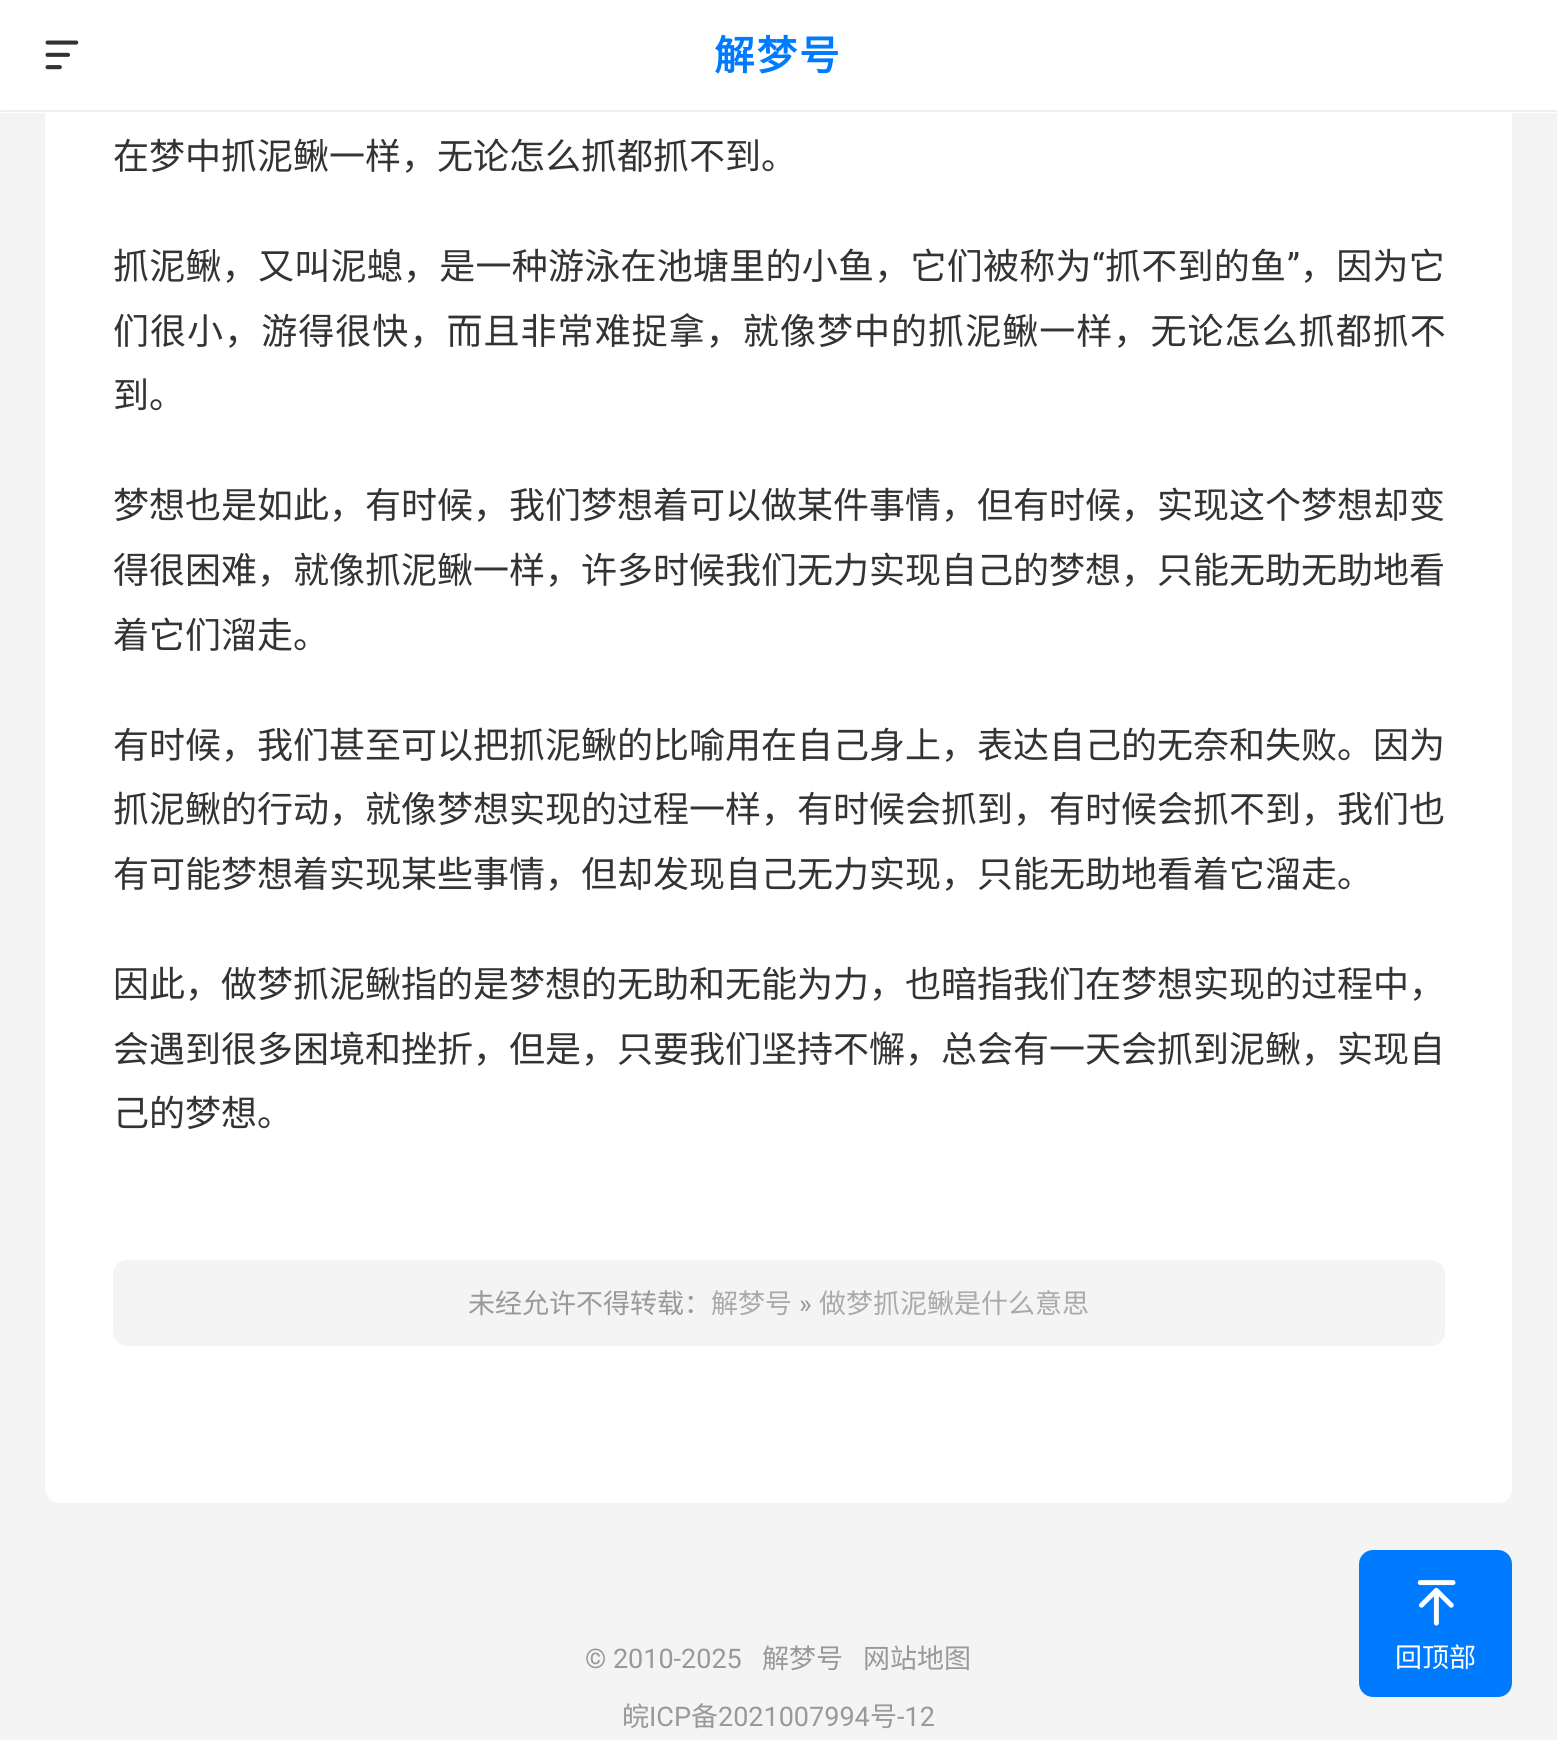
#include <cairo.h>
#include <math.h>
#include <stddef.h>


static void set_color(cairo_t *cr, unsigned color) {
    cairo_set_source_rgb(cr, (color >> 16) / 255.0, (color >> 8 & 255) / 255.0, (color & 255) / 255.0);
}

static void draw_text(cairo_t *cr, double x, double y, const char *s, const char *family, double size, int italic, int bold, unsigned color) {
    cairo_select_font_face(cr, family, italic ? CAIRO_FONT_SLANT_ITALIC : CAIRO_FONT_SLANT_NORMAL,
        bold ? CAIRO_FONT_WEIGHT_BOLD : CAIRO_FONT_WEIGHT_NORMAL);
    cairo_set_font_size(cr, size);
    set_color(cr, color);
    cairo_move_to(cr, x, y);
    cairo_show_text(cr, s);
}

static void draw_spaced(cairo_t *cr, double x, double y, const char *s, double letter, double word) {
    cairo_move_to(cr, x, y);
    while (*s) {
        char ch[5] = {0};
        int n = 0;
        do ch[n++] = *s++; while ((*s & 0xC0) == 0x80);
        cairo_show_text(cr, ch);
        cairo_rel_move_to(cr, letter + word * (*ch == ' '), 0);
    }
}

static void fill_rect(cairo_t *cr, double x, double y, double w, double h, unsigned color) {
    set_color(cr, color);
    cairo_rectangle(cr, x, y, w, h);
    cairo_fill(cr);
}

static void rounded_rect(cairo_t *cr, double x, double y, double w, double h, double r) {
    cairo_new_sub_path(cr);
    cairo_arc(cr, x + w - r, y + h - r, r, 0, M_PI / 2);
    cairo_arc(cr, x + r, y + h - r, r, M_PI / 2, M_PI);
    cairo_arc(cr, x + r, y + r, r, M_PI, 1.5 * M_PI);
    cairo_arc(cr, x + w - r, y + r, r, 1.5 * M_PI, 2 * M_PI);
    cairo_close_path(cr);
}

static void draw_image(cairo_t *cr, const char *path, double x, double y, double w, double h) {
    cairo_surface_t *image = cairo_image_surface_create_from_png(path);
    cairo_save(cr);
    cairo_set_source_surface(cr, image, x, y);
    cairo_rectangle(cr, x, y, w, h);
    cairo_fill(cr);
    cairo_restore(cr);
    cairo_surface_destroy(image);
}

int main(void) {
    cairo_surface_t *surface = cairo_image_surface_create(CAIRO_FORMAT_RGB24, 1557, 1740);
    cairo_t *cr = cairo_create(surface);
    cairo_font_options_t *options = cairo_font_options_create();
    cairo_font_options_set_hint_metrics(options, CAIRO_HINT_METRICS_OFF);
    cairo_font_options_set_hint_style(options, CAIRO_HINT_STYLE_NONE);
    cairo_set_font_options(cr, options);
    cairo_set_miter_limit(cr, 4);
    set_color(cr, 0xF4F4F4);
    cairo_paint(cr);
    set_color(cr, 0xFFFFFF);
    rounded_rect(cr, 45, -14, 1467, 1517, 14);
    cairo_fill(cr);
    fill_rect(cr, 0, 0, 1557, 113, 0xFFFFFF);
    draw_image(cr, "assets/img1.png", 45, 40, 34, 30);
    cairo_select_font_face(cr, "Noto Sans CJK SC", CAIRO_FONT_SLANT_NORMAL, CAIRO_FONT_WEIGHT_BOLD);
    cairo_set_font_size(cr, 40.5);
    set_color(cr, 0x007BFF);
    draw_spaced(cr, 714, 70, "解梦号", 2, 0);
    set_color(cr, 0xEEEEEE);
    rounded_rect(cr, 0, 110, 1557, 2, 1);
    cairo_fill(cr);
    draw_text(cr, 113, 169, "在梦中抓泥鳅一样，无论怎么抓都抓不到。", "Noto Sans CJK SC", 36, 0, 0, 0x333333);
    draw_spaced(cr, 113, 279, "抓泥鳅，又叫泥螅，是一种游泳在池塘里的小鱼，它们被称为", 0.25, 0);
    cairo_select_font_face(cr, "Roboto", CAIRO_FONT_SLANT_NORMAL, CAIRO_FONT_WEIGHT_NORMAL);
    draw_spaced(cr, 1092, 279, "“", 0.25, 0);
    cairo_select_font_face(cr, "Noto Sans CJK SC", CAIRO_FONT_SLANT_NORMAL, CAIRO_FONT_WEIGHT_NORMAL);
    draw_spaced(cr, 1105, 279, "抓不到的鱼", 0.25, 0);
    cairo_select_font_face(cr, "Roboto", CAIRO_FONT_SLANT_NORMAL, CAIRO_FONT_WEIGHT_NORMAL);
    draw_spaced(cr, 1287, 279, "”", 0.25, 0);
    cairo_select_font_face(cr, "Noto Sans CJK SC", CAIRO_FONT_SLANT_NORMAL, CAIRO_FONT_WEIGHT_NORMAL);
    draw_spaced(cr, 1300, 279, "，因为它", 0.25, 0);
    draw_spaced(cr, 113, 344, "们很小，游得很快，而且非常难捉拿，就像梦中的抓泥鳅一样，无论怎么抓都抓不", 1.05, 0);
    draw_text(cr, 113, 408, "到。", "Noto Sans CJK SC", 36, 0, 0, 0x333333);
    draw_text(cr, 113, 518, "梦想也是如此，有时候，我们梦想着可以做某件事情，但有时候，实现这个梦想却变", "Noto Sans CJK SC", 36, 0, 0, 0x333333);
    draw_text(cr, 113, 583, "得很困难，就像抓泥鳅一样，许多时候我们无力实现自己的梦想，只能无助无助地看", "Noto Sans CJK SC", 36, 0, 0, 0x333333);
    draw_text(cr, 113, 648, "着它们溜走。", "Noto Sans CJK SC", 36, 0, 0, 0x333333);
    draw_text(cr, 113, 758, "有时候，我们甚至可以把抓泥鳅的比喻用在自己身上，表达自己的无奈和失败。因为", "Noto Sans CJK SC", 36, 0, 0, 0x333333);
    draw_text(cr, 113, 822, "抓泥鳅的行动，就像梦想实现的过程一样，有时候会抓到，有时候会抓不到，我们也", "Noto Sans CJK SC", 36, 0, 0, 0x333333);
    draw_text(cr, 113, 887, "有可能梦想着实现某些事情，但却发现自己无力实现，只能无助地看着它溜走。", "Noto Sans CJK SC", 36, 0, 0, 0x333333);
    draw_text(cr, 113, 997, "因此，做梦抓泥鳅指的是梦想的无助和无能为力，也暗指我们在梦想实现的过程中，", "Noto Sans CJK SC", 36, 0, 0, 0x333333);
    draw_text(cr, 113, 1062, "会遇到很多困境和挫折，但是，只要我们坚持不懈，总会有一天会抓到泥鳅，实现自", "Noto Sans CJK SC", 36, 0, 0, 0x333333);
    draw_text(cr, 113, 1126, "己的梦想。", "Noto Sans CJK SC", 36, 0, 0, 0x333333);
    set_color(cr, 0xF4F4F4);
    rounded_rect(cr, 113, 1260, 1332, 86, 14);
    cairo_fill(cr);
    draw_text(cr, 468, 1313, "未经允许不得转载：", "Noto Sans CJK SC", 27, 0, 0, 0x999999);
    draw_text(cr, 711, 1313, "解梦号", "Noto Sans CJK SC", 27, 0, 0, 0xAAAAAA);
    draw_text(cr, 799, 1313, "»", "Roboto", 27, 0, 0, 0x999999);
    draw_text(cr, 819, 1313, "做梦抓泥鳅是什么意思", "Noto Sans CJK SC", 27, 0, 0, 0xAAAAAA);
    draw_text(cr, 585, 1668, "© 2010-2025", "Roboto", 27, 0, 0, 0x999999);
    draw_text(cr, 762, 1668, "解梦号", "Noto Sans CJK SC", 27, 0, 0, 0x999999);
    draw_text(cr, 863, 1668, "网站地图", "Noto Sans CJK SC", 27, 0, 0, 0x999999);
    draw_text(cr, 622, 1726, "皖", "Noto Sans CJK SC", 27, 0, 0, 0x999999);
    draw_text(cr, 649, 1726, "ICP", "Roboto", 27, 0, 0, 0x999999);
    draw_text(cr, 691, 1726, "备", "Noto Sans CJK SC", 27, 0, 0, 0x999999);
    draw_text(cr, 718, 1726, "2021007994", "Roboto", 27, 0, 0, 0x999999);
    draw_text(cr, 870, 1726, "号", "Noto Sans CJK SC", 27, 0, 0, 0x999999);
    draw_text(cr, 897, 1726, "-12", "Roboto", 27, 0, 0, 0x999999);
    set_color(cr, 0x007BFF);
    rounded_rect(cr, 1360, 1551, 151, 145, 13);
    cairo_fill_preserve(cr);
    cairo_stroke(cr);
    draw_image(cr, "assets/img2.png", 1417, 1580, 39, 46);
    draw_text(cr, 1395, 1667, "回顶部", "Noto Sans CJK SC", 27, 0, 0, 0xFFFFFF);
    cairo_surface_write_to_png(surface, "output.png");
    cairo_font_options_destroy(options);
    cairo_destroy(cr);
    cairo_surface_destroy(surface);
    return 0;
}
